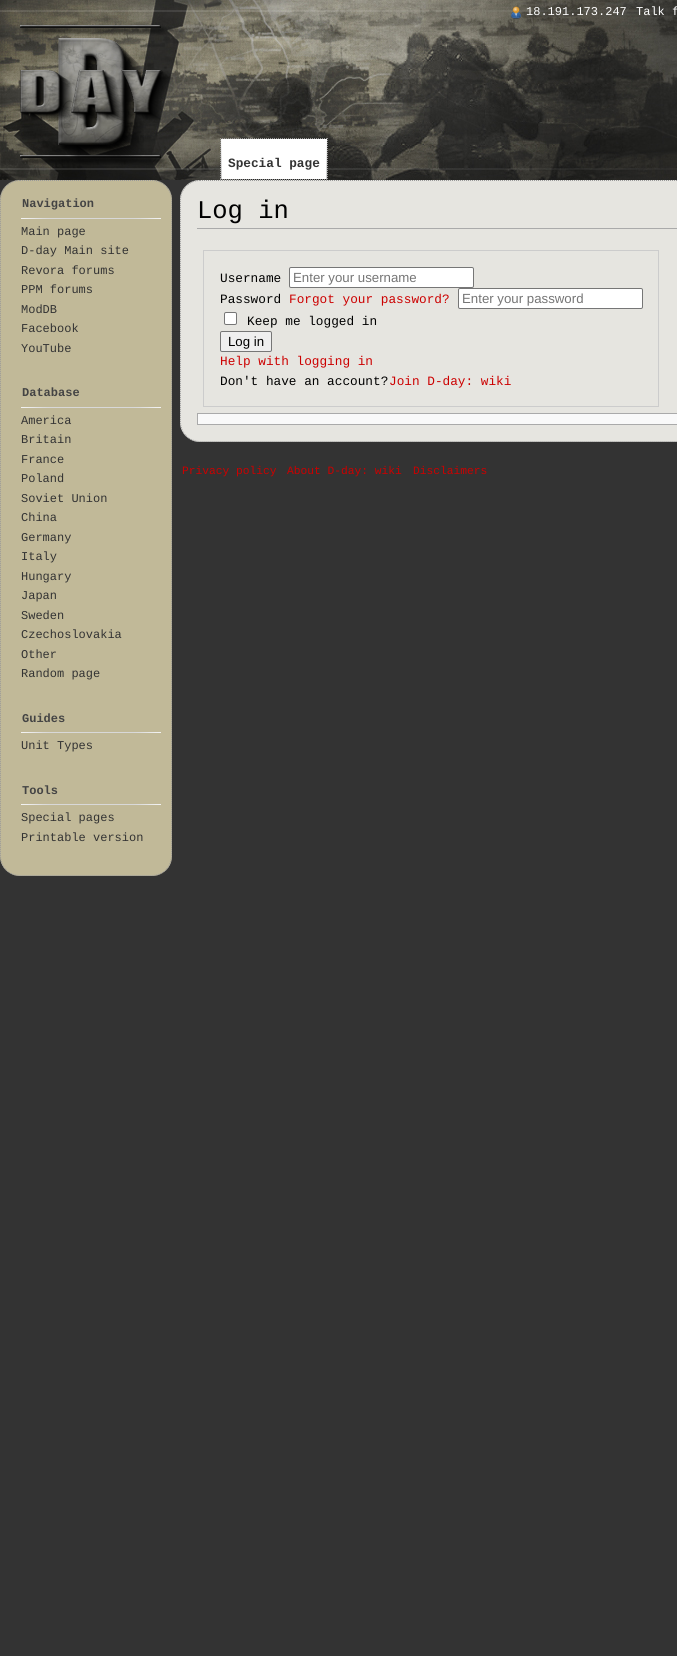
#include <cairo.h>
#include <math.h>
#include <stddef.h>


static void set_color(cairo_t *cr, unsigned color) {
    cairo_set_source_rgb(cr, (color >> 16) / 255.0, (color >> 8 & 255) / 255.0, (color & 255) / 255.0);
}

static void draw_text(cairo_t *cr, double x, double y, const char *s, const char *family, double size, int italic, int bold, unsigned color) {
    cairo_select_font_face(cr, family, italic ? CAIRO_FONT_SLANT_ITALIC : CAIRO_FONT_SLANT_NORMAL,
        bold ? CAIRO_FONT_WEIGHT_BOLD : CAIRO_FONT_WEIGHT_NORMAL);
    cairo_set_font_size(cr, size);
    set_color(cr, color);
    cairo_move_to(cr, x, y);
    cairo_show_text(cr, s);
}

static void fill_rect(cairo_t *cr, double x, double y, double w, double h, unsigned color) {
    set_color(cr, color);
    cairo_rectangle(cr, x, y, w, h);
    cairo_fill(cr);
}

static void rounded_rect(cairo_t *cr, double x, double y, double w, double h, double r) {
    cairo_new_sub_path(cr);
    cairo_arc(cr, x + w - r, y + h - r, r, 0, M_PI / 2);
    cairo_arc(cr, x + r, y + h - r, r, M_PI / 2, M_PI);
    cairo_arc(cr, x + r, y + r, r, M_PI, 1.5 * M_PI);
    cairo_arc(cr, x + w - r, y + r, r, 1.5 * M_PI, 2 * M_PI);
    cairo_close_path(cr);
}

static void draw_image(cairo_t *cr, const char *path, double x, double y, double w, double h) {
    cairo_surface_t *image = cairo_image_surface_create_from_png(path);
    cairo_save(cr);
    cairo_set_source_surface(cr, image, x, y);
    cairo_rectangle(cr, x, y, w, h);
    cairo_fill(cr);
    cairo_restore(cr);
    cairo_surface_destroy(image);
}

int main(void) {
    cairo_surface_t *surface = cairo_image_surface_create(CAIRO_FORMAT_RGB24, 677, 1656);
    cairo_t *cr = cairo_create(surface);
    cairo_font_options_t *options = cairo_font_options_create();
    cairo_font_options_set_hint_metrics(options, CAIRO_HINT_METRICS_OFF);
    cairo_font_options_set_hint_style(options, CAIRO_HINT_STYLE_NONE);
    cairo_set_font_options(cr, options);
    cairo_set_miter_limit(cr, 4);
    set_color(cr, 0x333333);
    cairo_paint(cr);
    draw_image(cr, "assets/img1.png", 0, 0, 677, 180);
    draw_image(cr, "assets/img2.png", 511, 6, 10, 13);
    draw_text(cr, 526, 15, "18.191.173.247", "Liberation Mono", 12, 0, 0, 0xFFFFFF);
    draw_text(cr, 636, 15, "Talk f", "Liberation Mono", 12, 0, 0, 0xFFFFFF);
    cairo_new_path(cr);
    cairo_move_to(cr, 220, 138.5);
    cairo_line_to(cr, 328, 138.5);
    set_color(cr, 0x999999);
    cairo_set_line_width(cr, 1);
    cairo_set_dash(cr, (double[]){1, 1}, 2, 0);
    cairo_stroke(cr);
    cairo_new_path(cr);
    cairo_move_to(cr, 327.5, 138);
    cairo_line_to(cr, 327.5, 180);
    cairo_stroke(cr);
    cairo_new_path(cr);
    cairo_move_to(cr, 220, 179.5);
    cairo_line_to(cr, 328, 179.5);
    cairo_stroke(cr);
    cairo_new_path(cr);
    cairo_move_to(cr, 220.5, 138);
    cairo_line_to(cr, 220.5, 180);
    cairo_stroke(cr);
    draw_image(cr, "assets/img3.png", 221, 139, 1, 40);
    fill_rect(cr, 222, 139, 105, 40, 0xFFFFFF);
    draw_image(cr, "assets/img4.png", 326, 141, 1, 38);
    draw_text(cr, 228, 167, "Special page", "Liberation Mono", 12.75, 0, 1, 0x333333);
    set_color(cr, 0xC1B998);
    rounded_rect(cr, 0, 180, 172, 696, 20);
    cairo_fill(cr);
    cairo_new_path(cr);
    cairo_move_to(cr, 20, 180.5);
    cairo_line_to(cr, 152, 180.5);
    cairo_curve_to(cr, 163, 180.5, 171.5, 189, 171.5, 200);
    cairo_line_to(cr, 171.5, 856);
    cairo_curve_to(cr, 171.5, 867, 163, 875.5, 152, 875.5);
    cairo_line_to(cr, 20, 875.5);
    cairo_curve_to(cr, 9, 875.5, 0.5, 867, 0.5, 856);
    cairo_line_to(cr, 0.5, 200);
    cairo_curve_to(cr, 0.5, 189, 9, 180.5, 20, 180.5);
    cairo_close_path(cr);
    set_color(cr, 0x999999);
    cairo_stroke(cr);
    draw_image(cr, "assets/img5.png", 20, 25, 153, 140);
    draw_text(cr, 22, 207, "Navigation", "Liberation Mono", 12, 0, 1, 0x444444);
    draw_image(cr, "assets/img6.png", 21, 218, 140, 1);
    draw_text(cr, 21, 235, "Main page", "Liberation Mono", 12, 0, 0, 0x333333);
    draw_text(cr, 21, 254, "D-day Main site", "Liberation Mono", 12, 0, 0, 0x333333);
    draw_text(cr, 21, 274, "Revora forums", "Liberation Mono", 12, 0, 0, 0x333333);
    draw_text(cr, 21, 293, "PPM forums", "Liberation Mono", 12, 0, 0, 0x333333);
    draw_text(cr, 21, 313, "ModDB", "Liberation Mono", 12, 0, 0, 0x333333);
    draw_text(cr, 21, 332, "Facebook", "Liberation Mono", 12, 0, 0, 0x333333);
    draw_text(cr, 21, 352, "YouTube", "Liberation Mono", 12, 0, 0, 0x333333);
    draw_text(cr, 22, 396, "Database", "Liberation Mono", 12, 0, 1, 0x444444);
    draw_image(cr, "assets/img6.png", 21, 407, 140, 1);
    draw_text(cr, 21, 424, "America", "Liberation Mono", 12, 0, 0, 0x333333);
    draw_text(cr, 21, 443, "Britain", "Liberation Mono", 12, 0, 0, 0x333333);
    draw_text(cr, 21, 463, "France", "Liberation Mono", 12, 0, 0, 0x333333);
    draw_text(cr, 21, 482, "Poland", "Liberation Mono", 12, 0, 0, 0x333333);
    draw_text(cr, 21, 502, "Soviet Union", "Liberation Mono", 12, 0, 0, 0x333333);
    draw_text(cr, 21, 521, "China", "Liberation Mono", 12, 0, 0, 0x333333);
    draw_text(cr, 21, 541, "Germany", "Liberation Mono", 12, 0, 0, 0x333333);
    draw_text(cr, 21, 560, "Italy", "Liberation Mono", 12, 0, 0, 0x333333);
    draw_text(cr, 21, 580, "Hungary", "Liberation Mono", 12, 0, 0, 0x333333);
    draw_text(cr, 21, 599, "Japan", "Liberation Mono", 12, 0, 0, 0x333333);
    draw_text(cr, 21, 619, "Sweden", "Liberation Mono", 12, 0, 0, 0x333333);
    draw_text(cr, 21, 638, "Czechoslovakia", "Liberation Mono", 12, 0, 0, 0x333333);
    draw_text(cr, 21, 658, "Other", "Liberation Mono", 12, 0, 0, 0x333333);
    draw_text(cr, 21, 677, "Random page", "Liberation Mono", 12, 0, 0, 0x333333);
    draw_text(cr, 22, 722, "Guides", "Liberation Mono", 12, 0, 1, 0x444444);
    draw_image(cr, "assets/img6.png", 21, 732, 140, 1);
    draw_text(cr, 21, 749, "Unit Types", "Liberation Mono", 12, 0, 0, 0x333333);
    draw_text(cr, 22, 794, "Tools", "Liberation Mono", 12, 0, 1, 0x444444);
    draw_image(cr, "assets/img6.png", 21, 804, 140, 1);
    draw_text(cr, 21, 821, "Special pages", "Liberation Mono", 12, 0, 0, 0x333333);
    draw_text(cr, 21, 841, "Printable version", "Liberation Mono", 12, 0, 0, 0x333333);
    set_color(cr, 0xE6E5E0);
    rounded_rect(cr, 180, 180, 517, 262, 20);
    cairo_fill(cr);
    cairo_new_path(cr);
    cairo_move_to(cr, 200, 180.5);
    cairo_line_to(cr, 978, 180.5);
    cairo_curve_to(cr, 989, 180.5, 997.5, 189, 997.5, 200);
    cairo_line_to(cr, 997.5, 422);
    cairo_curve_to(cr, 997.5, 433, 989, 441.5, 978, 441.5);
    cairo_line_to(cr, 200, 441.5);
    cairo_curve_to(cr, 189, 441.5, 180.5, 433, 180.5, 422);
    cairo_line_to(cr, 180.5, 200);
    cairo_curve_to(cr, 180.5, 189, 189, 180.5, 200, 180.5);
    cairo_close_path(cr);
    set_color(cr, 0x999999);
    cairo_stroke(cr);
    fill_rect(cr, 197, 228, 480, 1, 0xAAAAAA);
    draw_text(cr, 197, 218, "Log in", "Liberation Mono", 25.5, 0, 0, 0x000000);
    cairo_rectangle(cr, 203.5, 250.5, 455, 156);
    set_color(cr, 0xCCCCCC);
    cairo_set_dash(cr, NULL, 0, 0);
    cairo_stroke(cr);
    draw_text(cr, 220, 282, "Username", "Liberation Mono", 12.75, 0, 0, 0x000000);
    set_color(cr, 0xFFFFFF);
    rounded_rect(cr, 289.5, 267.5, 184, 20, 1.5);
    cairo_fill_preserve(cr);
    set_color(cr, 0x767676);
    cairo_stroke(cr);
    draw_text(cr, 293, 282, "Enter your username", "Liberation Sans", 13.25, 0, 0, 0x757575);
    draw_text(cr, 220, 303, "Password", "Liberation Mono", 12.75, 0, 0, 0x000000);
    draw_text(cr, 289, 303, "Forgot your password?", "Liberation Mono", 12.75, 0, 0, 0xCC0000);
    set_color(cr, 0xFFFFFF);
    rounded_rect(cr, 458.5, 288.5, 184, 20, 1.5);
    cairo_fill_preserve(cr);
    set_color(cr, 0x767676);
    cairo_stroke(cr);
    draw_text(cr, 462, 303, "Enter your password", "Liberation Sans", 13.25, 0, 0, 0x757575);
    set_color(cr, 0xFFFFFF);
    rounded_rect(cr, 224.5, 312.5, 12, 12, 1.5);
    cairo_fill_preserve(cr);
    set_color(cr, 0x767676);
    cairo_stroke(cr);
    draw_text(cr, 247, 325, "Keep me logged in", "Liberation Mono", 12.75, 0, 0, 0x000000);
    set_color(cr, 0xEFEFEF);
    rounded_rect(cr, 220.5, 331.5, 51, 20, 1.5);
    cairo_fill_preserve(cr);
    set_color(cr, 0x767676);
    cairo_stroke(cr);
    draw_text(cr, 228, 346, "Log in", "Liberation Sans", 13.25, 0, 0, 0x000000);
    draw_text(cr, 220, 365, "Help with logging in", "Liberation Mono", 12.75, 0, 0, 0xCC0000);
    draw_text(cr, 220, 385, "Don't have an account?", "Liberation Mono", 12.75, 0, 0, 0x000000);
    draw_text(cr, 389, 385, "Join D-day: wiki", "Liberation Mono", 12.75, 0, 0, 0xCC0000);
    set_color(cr, 0xF9F9F9);
    cairo_rectangle(cr, 197.5, 413.5, 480, 11);
    cairo_fill_preserve(cr);
    set_color(cr, 0xAAAAAA);
    cairo_stroke(cr);
    draw_text(cr, 182, 474, "Privacy policy", "Liberation Mono", 11.25, 0, 0, 0xCC0000);
    draw_text(cr, 287, 474, "About D-day: wiki", "Liberation Mono", 11.25, 0, 0, 0xCC0000);
    draw_text(cr, 413, 474, "Disclaimers", "Liberation Mono", 11.25, 0, 0, 0xCC0000);
    cairo_surface_write_to_png(surface, "output.png");
    cairo_font_options_destroy(options);
    cairo_destroy(cr);
    cairo_surface_destroy(surface);
    return 0;
}
